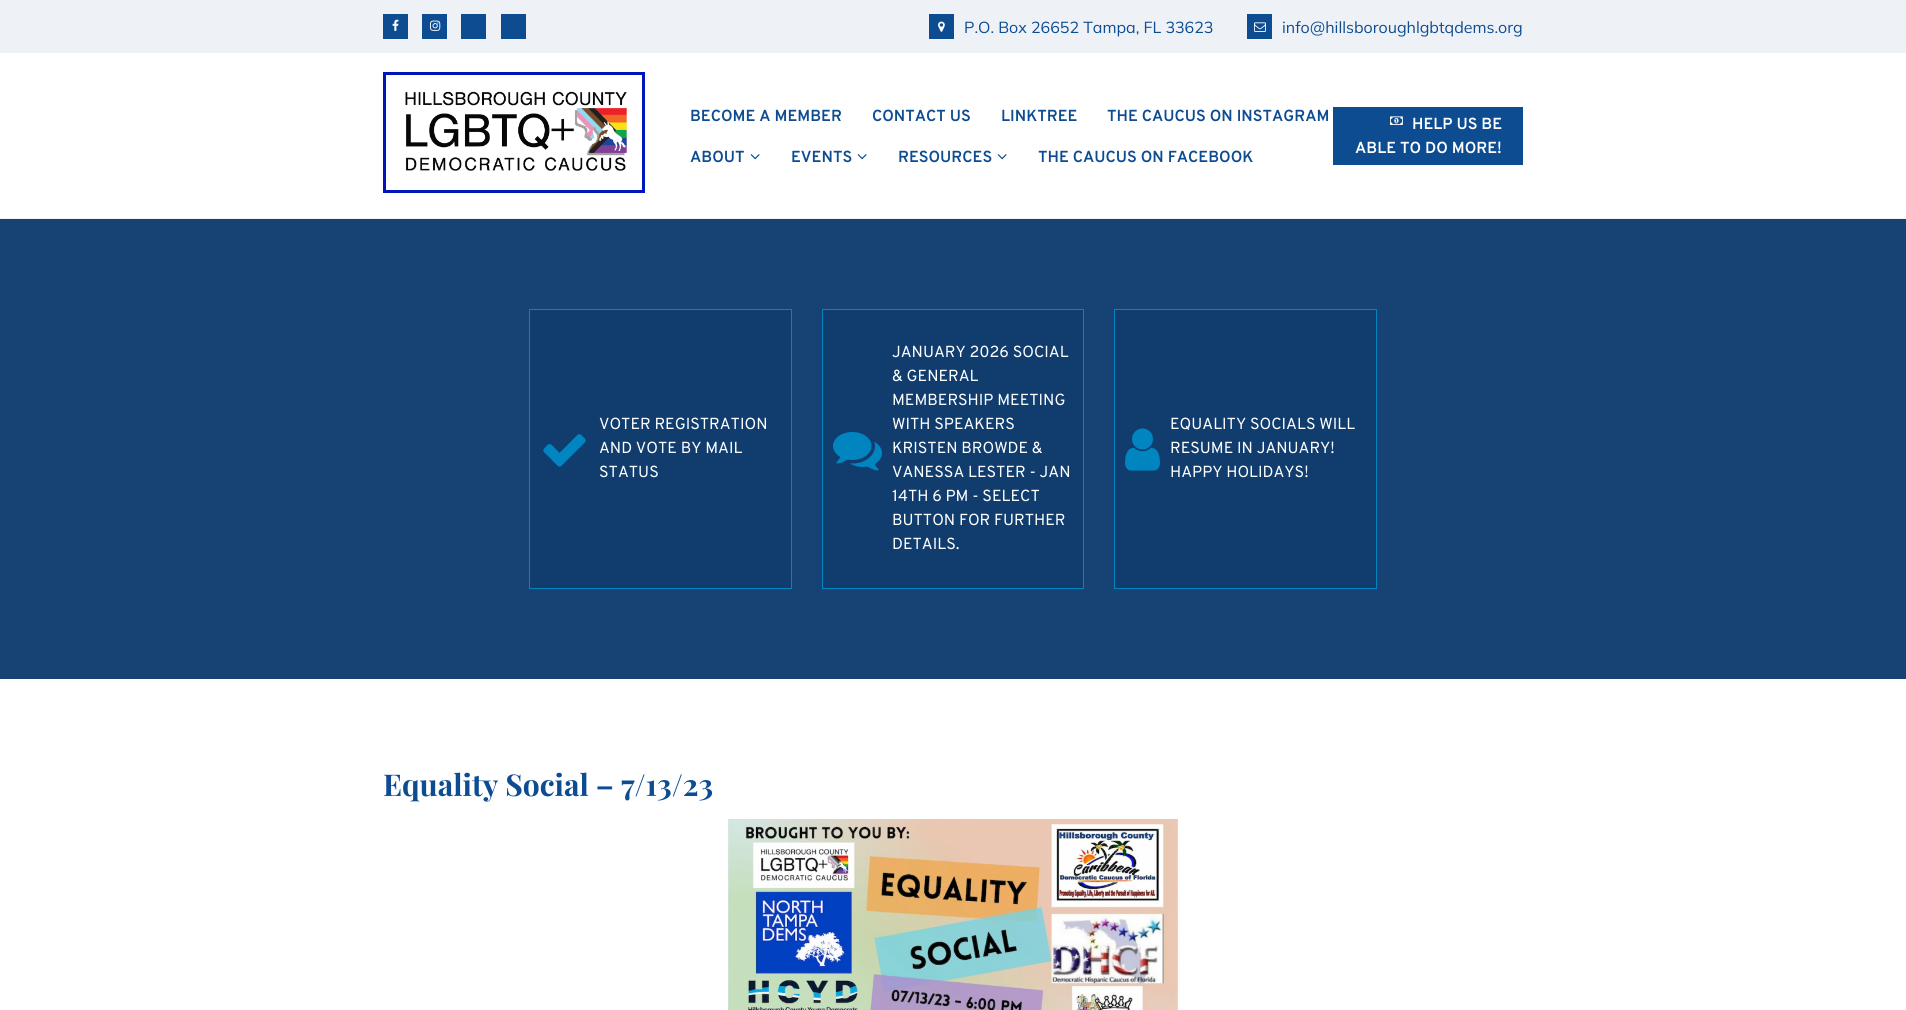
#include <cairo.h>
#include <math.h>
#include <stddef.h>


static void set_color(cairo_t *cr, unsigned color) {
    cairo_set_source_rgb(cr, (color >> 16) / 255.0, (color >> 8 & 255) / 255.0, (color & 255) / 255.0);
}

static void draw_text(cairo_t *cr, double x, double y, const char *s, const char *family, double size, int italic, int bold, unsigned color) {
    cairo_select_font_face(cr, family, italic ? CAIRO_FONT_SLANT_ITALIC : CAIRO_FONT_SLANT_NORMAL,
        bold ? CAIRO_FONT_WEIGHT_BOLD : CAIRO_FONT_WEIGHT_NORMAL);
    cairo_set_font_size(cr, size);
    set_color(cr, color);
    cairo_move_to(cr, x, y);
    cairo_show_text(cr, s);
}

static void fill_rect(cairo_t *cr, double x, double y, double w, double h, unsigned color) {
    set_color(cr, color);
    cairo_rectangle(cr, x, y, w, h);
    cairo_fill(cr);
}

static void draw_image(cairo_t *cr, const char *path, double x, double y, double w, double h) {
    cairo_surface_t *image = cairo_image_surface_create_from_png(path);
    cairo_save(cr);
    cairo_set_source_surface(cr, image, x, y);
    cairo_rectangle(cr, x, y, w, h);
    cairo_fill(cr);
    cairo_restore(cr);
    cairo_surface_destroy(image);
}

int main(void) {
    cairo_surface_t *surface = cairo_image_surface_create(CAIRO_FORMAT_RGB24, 1906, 1010);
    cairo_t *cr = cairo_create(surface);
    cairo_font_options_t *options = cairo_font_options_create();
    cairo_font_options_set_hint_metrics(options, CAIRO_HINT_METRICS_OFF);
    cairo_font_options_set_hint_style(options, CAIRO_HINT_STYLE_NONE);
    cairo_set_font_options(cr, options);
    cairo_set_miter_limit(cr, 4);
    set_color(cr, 0xFFFFFF);
    cairo_paint(cr);
    fill_rect(cr, 0, 0, 1906, 53, 0xEEF2F7);
    fill_rect(cr, 383, 14, 25, 25, 0x0D4C91);
    draw_image(cr, "assets/img1.png", 392, 19, 7, 12);
    fill_rect(cr, 422, 14, 25, 25, 0x0D4C91);
    draw_image(cr, "assets/img2.png", 430, 20, 11, 11);
    fill_rect(cr, 461, 14, 25, 25, 0x0D4C91);
    fill_rect(cr, 501, 14, 25, 25, 0x0D4C91);
    fill_rect(cr, 929, 14, 25, 25, 0x0D4C91);
    draw_image(cr, "assets/img3.png", 938, 21, 7, 11);
    draw_text(cr, 964, 33, "P.O. Box 26652 Tampa, FL 33623", "Mulish", 16, 0, 0, 0x0D4C91);
    fill_rect(cr, 1247, 14, 25, 25, 0x0D4C91);
    draw_image(cr, "assets/img4.png", 1254, 22, 12, 10);
    draw_text(cr, 1282, 33, "info@hillsboroughlgbtqdems.org", "Mulish", 16, 0, 0, 0x0D4C91);
    fill_rect(cr, 0, 218, 1906, 1, 0xF1F1F1);
    draw_image(cr, "assets/img5.png", 383, 72, 262, 121);
    draw_text(cr, 690, 121, "BECOME A MEMBER", "Overpass SemiBold", 16, 0, 0, 0x0D4C91);
    draw_text(cr, 872, 121, "CONTACT US", "Overpass SemiBold", 16, 0, 0, 0x0D4C91);
    draw_text(cr, 1001, 121, "LINKTREE", "Overpass SemiBold", 16, 0, 0, 0x0D4C91);
    draw_text(cr, 1107, 121, "THE CAUCUS ON INSTAGRAM", "Overpass SemiBold", 16, 0, 0, 0x0D4C91);
    draw_text(cr, 690, 162, "ABOUT", "Overpass SemiBold", 16, 0, 0, 0x0D4C91);
    draw_image(cr, "assets/img6.png", 750, 154, 10, 6);
    draw_text(cr, 791, 162, "EVENTS", "Overpass SemiBold", 16, 0, 0, 0x0D4C91);
    draw_image(cr, "assets/img6.png", 857, 154, 10, 6);
    draw_text(cr, 898, 162, "RESOURCES", "Overpass SemiBold", 16, 0, 0, 0x0D4C91);
    draw_image(cr, "assets/img6.png", 997, 154, 10, 6);
    draw_text(cr, 1038, 162, "THE CAUCUS ON FACEBOOK", "Overpass SemiBold", 16, 0, 0, 0x0D4C91);
    fill_rect(cr, 1333, 107, 190, 58, 0x0D4C91);
    draw_image(cr, "assets/img7.png", 1390, 116, 13, 9);
    draw_text(cr, 1412, 129, "HELP US BE", "Overpass SemiBold", 16, 0, 0, 0xFFFFFF);
    draw_text(cr, 1355, 153, "ABLE TO DO MORE!", "Overpass SemiBold", 16, 0, 0, 0xFFFFFF);
    fill_rect(cr, 0, 219, 1906, 460, 0x164274);
    set_color(cr, 0x113D6E);
    cairo_rectangle(cr, 529.5, 309.5, 262, 279);
    cairo_fill_preserve(cr);
    set_color(cr, 0x0085C0);
    cairo_set_line_width(cr, 1);
    cairo_stroke(cr);
    draw_image(cr, "assets/img8.png", 543, 434, 43, 33);
    draw_text(cr, 599, 429, "VOTER REGISTRATION", "Overpass", 16, 0, 0, 0xFFFFFF);
    draw_text(cr, 599, 453, "AND VOTE BY MAIL", "Overpass", 16, 0, 0, 0xFFFFFF);
    draw_text(cr, 599, 477, "STATUS", "Overpass", 16, 0, 0, 0xFFFFFF);
    set_color(cr, 0x113D6E);
    cairo_rectangle(cr, 822.5, 309.5, 261, 279);
    cairo_fill_preserve(cr);
    set_color(cr, 0x0085C0);
    cairo_stroke(cr);
    draw_image(cr, "assets/img9.png", 833, 432, 49, 39);
    draw_text(cr, 892, 357, "JANUARY 2026 SOCIAL", "Overpass", 16, 0, 0, 0xFFFFFF);
    draw_text(cr, 892, 381, "& GENERAL", "Overpass", 16, 0, 0, 0xFFFFFF);
    draw_text(cr, 892, 405, "MEMBERSHIP MEETING", "Overpass", 16, 0, 0, 0xFFFFFF);
    draw_text(cr, 892, 429, "WITH SPEAKERS", "Overpass", 16, 0, 0, 0xFFFFFF);
    draw_text(cr, 892, 453, "KRISTEN BROWDE &", "Overpass", 16, 0, 0, 0xFFFFFF);
    draw_text(cr, 892, 477, "VANESSA LESTER - JAN", "Overpass", 16, 0, 0, 0xFFFFFF);
    draw_text(cr, 892, 501, "14TH 6 PM - SELECT", "Overpass", 16, 0, 0, 0xFFFFFF);
    draw_text(cr, 892, 525, "BUTTON FOR FURTHER", "Overpass", 16, 0, 0, 0xFFFFFF);
    draw_text(cr, 892, 549, "DETAILS.", "Overpass", 16, 0, 0, 0xFFFFFF);
    set_color(cr, 0x113D6E);
    cairo_rectangle(cr, 1114.5, 309.5, 262, 279);
    cairo_fill_preserve(cr);
    set_color(cr, 0x0085C0);
    cairo_stroke(cr);
    draw_image(cr, "assets/img10.png", 1125, 428, 35, 43);
    draw_text(cr, 1170, 429, "EQUALITY SOCIALS WILL", "Overpass", 16, 0, 0, 0xFFFFFF);
    draw_text(cr, 1170, 453, "RESUME IN JANUARY!", "Overpass", 16, 0, 0, 0xFFFFFF);
    draw_text(cr, 1170, 477, "HAPPY HOLIDAYS!", "Overpass", 16, 0, 0, 0xFFFFFF);
    draw_text(cr, 383, 796, "Equality Social – 7/13/23", "Playfair Display", 30, 0, 1, 0x0D4C91);
    draw_image(cr, "assets/img11.png", 728, 819, 450, 191);
    cairo_surface_write_to_png(surface, "output.png");
    cairo_font_options_destroy(options);
    cairo_destroy(cr);
    cairo_surface_destroy(surface);
    return 0;
}
